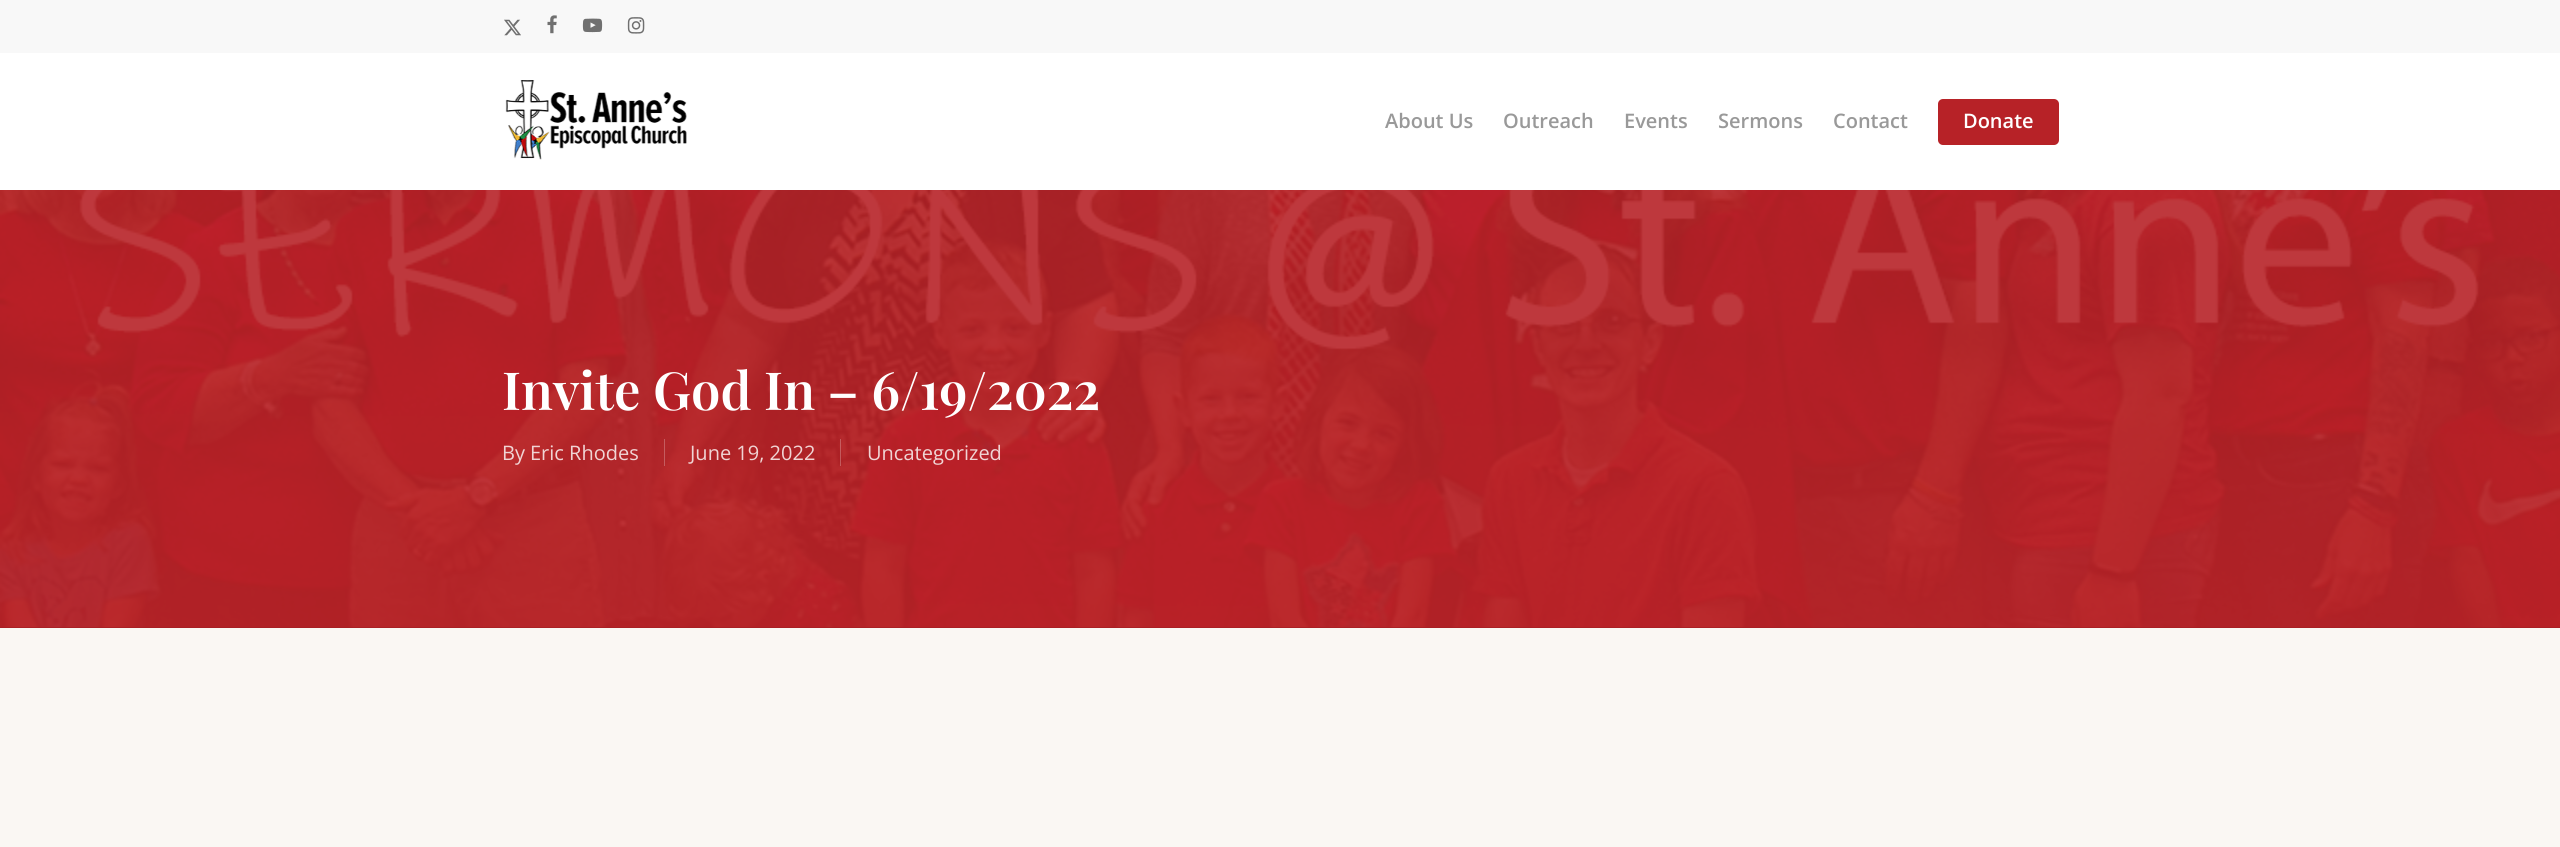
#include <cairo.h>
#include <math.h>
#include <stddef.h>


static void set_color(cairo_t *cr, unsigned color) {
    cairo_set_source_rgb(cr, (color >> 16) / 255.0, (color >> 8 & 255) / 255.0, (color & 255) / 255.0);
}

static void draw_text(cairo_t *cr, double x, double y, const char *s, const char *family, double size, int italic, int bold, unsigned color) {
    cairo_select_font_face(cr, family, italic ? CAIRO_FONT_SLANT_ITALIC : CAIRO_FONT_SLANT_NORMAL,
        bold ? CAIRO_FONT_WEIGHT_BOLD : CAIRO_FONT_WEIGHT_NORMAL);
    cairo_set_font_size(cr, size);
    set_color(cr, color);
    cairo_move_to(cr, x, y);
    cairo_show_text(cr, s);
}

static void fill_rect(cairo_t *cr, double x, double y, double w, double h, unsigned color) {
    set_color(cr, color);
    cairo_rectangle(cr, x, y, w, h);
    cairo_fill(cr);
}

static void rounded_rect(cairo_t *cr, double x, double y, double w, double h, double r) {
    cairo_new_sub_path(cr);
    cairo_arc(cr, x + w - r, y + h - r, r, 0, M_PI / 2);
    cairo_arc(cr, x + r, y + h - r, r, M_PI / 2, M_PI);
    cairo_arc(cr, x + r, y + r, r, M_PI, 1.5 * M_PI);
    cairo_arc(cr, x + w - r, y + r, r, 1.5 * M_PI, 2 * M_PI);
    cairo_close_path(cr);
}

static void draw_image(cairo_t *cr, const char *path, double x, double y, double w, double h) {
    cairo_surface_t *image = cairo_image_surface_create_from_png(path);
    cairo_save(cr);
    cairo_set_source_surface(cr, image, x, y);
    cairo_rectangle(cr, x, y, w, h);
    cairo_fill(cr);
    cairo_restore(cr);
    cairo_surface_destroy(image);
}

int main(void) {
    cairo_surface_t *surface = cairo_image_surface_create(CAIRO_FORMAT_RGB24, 2560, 847);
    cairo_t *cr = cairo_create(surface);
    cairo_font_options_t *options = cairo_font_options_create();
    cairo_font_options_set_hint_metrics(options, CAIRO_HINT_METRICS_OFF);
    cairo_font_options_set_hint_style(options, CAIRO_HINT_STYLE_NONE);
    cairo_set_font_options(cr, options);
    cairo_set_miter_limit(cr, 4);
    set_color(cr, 0xFAF7F3);
    cairo_paint(cr);
    fill_rect(cr, 0, 53, 2560, 137, 0xFFFFFF);
    fill_rect(cr, 0, 0, 2560, 53, 0xF8F8F8);
    draw_image(cr, "assets/img1.png", 504, 19, 17, 17);
    draw_image(cr, "assets/img2.png", 547, 15, 10, 19);
    draw_image(cr, "assets/img3.png", 582, 18, 21, 15);
    draw_image(cr, "assets/img4.png", 627, 17, 18, 17);
    draw_image(cr, "assets/img5.png", 505, 80, 182, 80);
    draw_text(cr, 1385, 128, "About Us", "Open Sans SemiBold", 20, 0, 0, 0x999999);
    draw_text(cr, 1503, 128, "Outreach", "Open Sans SemiBold", 20, 0, 0, 0x999999);
    draw_text(cr, 1624, 128, "Events", "Open Sans SemiBold", 20, 0, 0, 0x999999);
    draw_text(cr, 1718, 128, "Sermons", "Open Sans SemiBold", 20, 0, 0, 0x999999);
    draw_text(cr, 1833, 128, "Contact", "Open Sans SemiBold", 20, 0, 0, 0x999999);
    set_color(cr, 0xB72227);
    rounded_rect(cr, 1938, 99, 121, 46, 5);
    cairo_fill(cr);
    draw_text(cr, 1963, 128, "Donate", "Open Sans SemiBold", 20, 0, 0, 0xFFFFFF);
    fill_rect(cr, 0, 627, 2560, 1, 0xA51F23);
    draw_image(cr, "assets/img6.png", 0, 190, 2560, 438);
    draw_text(cr, 502, 410, "Invite God In – 6/19/2022", "Playfair Display SemiBold", 52.5, 0, 0, 0xFFFFFF);
    draw_text(cr, 502, 460, "By", "Open Sans", 20, 0, 0, 0xF0D4D4);
    draw_text(cr, 530, 460, "Eric Rhodes", "Open Sans", 20, 0, 0, 0xF0D4D4);
    draw_text(cr, 690, 460, "June 19, 2022", "Open Sans", 20, 0, 0, 0xF0D4D4);
    cairo_set_source_rgba(cr, 1, 1, 1, 0.25);
    cairo_rectangle(cr, 664, 439, 1, 27);
    cairo_fill(cr);
    draw_text(cr, 867, 460, "Uncategorized", "Open Sans", 20, 0, 0, 0xF0D4D4);
    cairo_set_source_rgba(cr, 1, 1, 1, 0.25);
    cairo_rectangle(cr, 840, 439, 1, 27);
    cairo_fill(cr);
    cairo_surface_write_to_png(surface, "output.png");
    cairo_font_options_destroy(options);
    cairo_destroy(cr);
    cairo_surface_destroy(surface);
    return 0;
}
